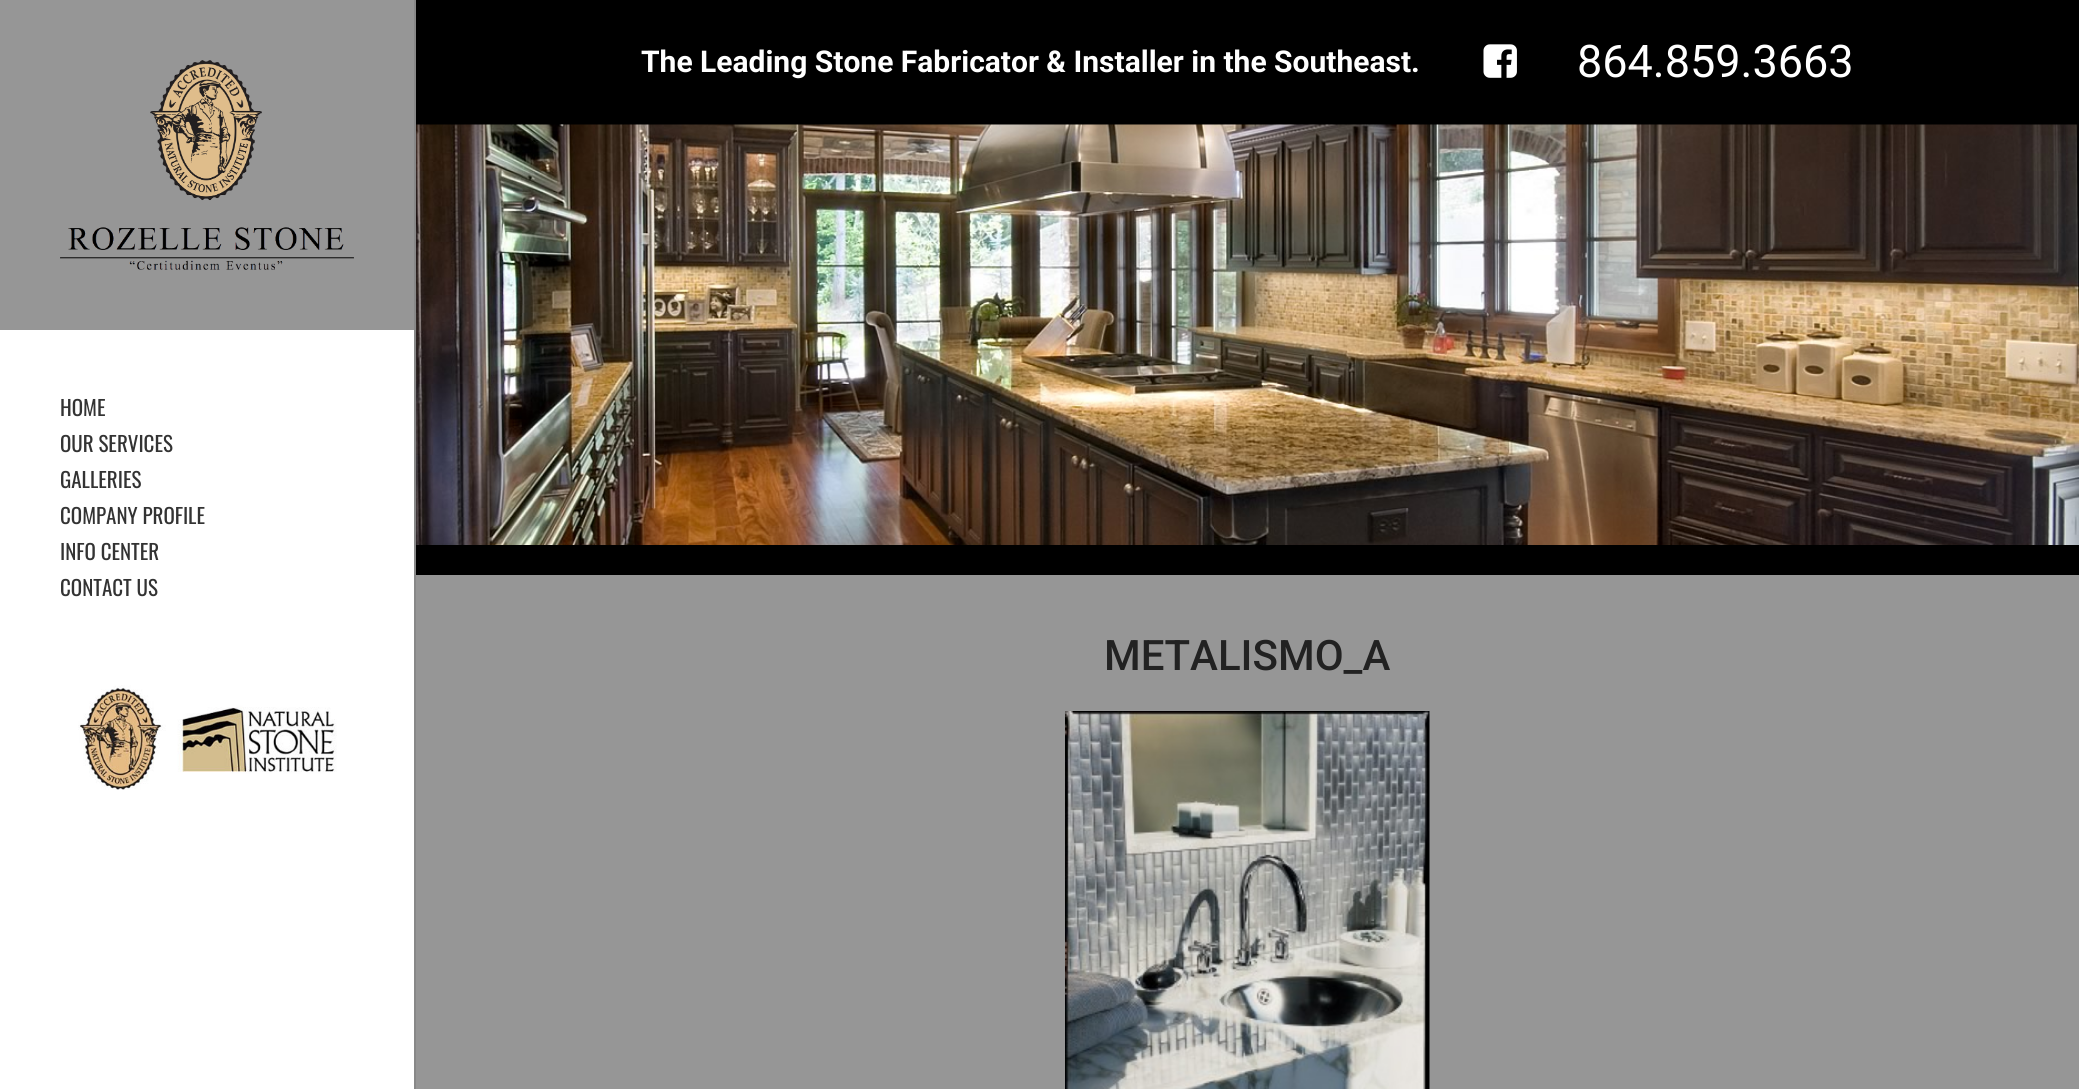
#include <cairo.h>
#include <math.h>
#include <stddef.h>


static void set_color(cairo_t *cr, unsigned color) {
    cairo_set_source_rgb(cr, (color >> 16) / 255.0, (color >> 8 & 255) / 255.0, (color & 255) / 255.0);
}

static void draw_text(cairo_t *cr, double x, double y, const char *s, const char *family, double size, int italic, int bold, unsigned color) {
    cairo_select_font_face(cr, family, italic ? CAIRO_FONT_SLANT_ITALIC : CAIRO_FONT_SLANT_NORMAL,
        bold ? CAIRO_FONT_WEIGHT_BOLD : CAIRO_FONT_WEIGHT_NORMAL);
    cairo_set_font_size(cr, size);
    set_color(cr, color);
    cairo_move_to(cr, x, y);
    cairo_show_text(cr, s);
}

static void fill_rect(cairo_t *cr, double x, double y, double w, double h, unsigned color) {
    set_color(cr, color);
    cairo_rectangle(cr, x, y, w, h);
    cairo_fill(cr);
}

static void draw_image(cairo_t *cr, const char *path, double x, double y, double w, double h) {
    cairo_surface_t *image = cairo_image_surface_create_from_png(path);
    cairo_save(cr);
    cairo_set_source_surface(cr, image, x, y);
    cairo_rectangle(cr, x, y, w, h);
    cairo_fill(cr);
    cairo_restore(cr);
    cairo_surface_destroy(image);
}

int main(void) {
    cairo_surface_t *surface = cairo_image_surface_create(CAIRO_FORMAT_RGB24, 2079, 1089);
    cairo_t *cr = cairo_create(surface);
    cairo_font_options_t *options = cairo_font_options_create();
    cairo_font_options_set_hint_metrics(options, CAIRO_HINT_METRICS_OFF);
    cairo_font_options_set_hint_style(options, CAIRO_HINT_STYLE_NONE);
    cairo_set_font_options(cr, options);
    cairo_set_miter_limit(cr, 4);
    set_color(cr, 0x969696);
    cairo_paint(cr);
    fill_rect(cr, 0, 330, 414, 759, 0xFFFFFF);
    fill_rect(cr, 414, 0, 2, 1089, 0x888888);
    draw_image(cr, "assets/img1.png", 60, 60, 294, 210);
    draw_text(cr, 60, 416, "HOME", "Oswald", 21, 0, 0, 0x333333);
    draw_text(cr, 60, 452, "OUR SERVICES", "Oswald", 21, 0, 0, 0x333333);
    draw_text(cr, 60, 488, "GALLERIES", "Oswald", 21, 0, 0, 0x333333);
    draw_text(cr, 60, 524, "COMPANY PROFILE", "Oswald", 21, 0, 0, 0x333333);
    draw_text(cr, 60, 560, "INFO CENTER", "Oswald", 21, 0, 0, 0x333333);
    draw_text(cr, 60, 596, "CONTACT US", "Oswald", 21, 0, 0, 0x333333);
    draw_image(cr, "assets/img2.png", 78, 685, 259, 105);
    fill_rect(cr, 416, 0, 1663, 125, 0x000000);
    draw_text(cr, 641, 72, "The Leading Stone Fabricator & Installer in the Southeast.", "Roboto", 30, 0, 1, 0xFFFFFF);
    draw_image(cr, "assets/img3.png", 1483, 44, 34, 34);
    draw_text(cr, 1577, 77, "864.859.3663", "Roboto", 45, 0, 0, 0xFFFFFF);
    draw_image(cr, "assets/img4.png", 416, 124, 1663, 421);
    fill_rect(cr, 416, 545, 1663, 30, 0x000000);
    draw_text(cr, 1104, 670, "METALISMO_A", "Roboto Medium", 42, 0, 0, 0x222222);
    draw_image(cr, "assets/img5.png", 1065, 711, 365, 378);
    cairo_surface_write_to_png(surface, "output.png");
    cairo_font_options_destroy(options);
    cairo_destroy(cr);
    cairo_surface_destroy(surface);
    return 0;
}
